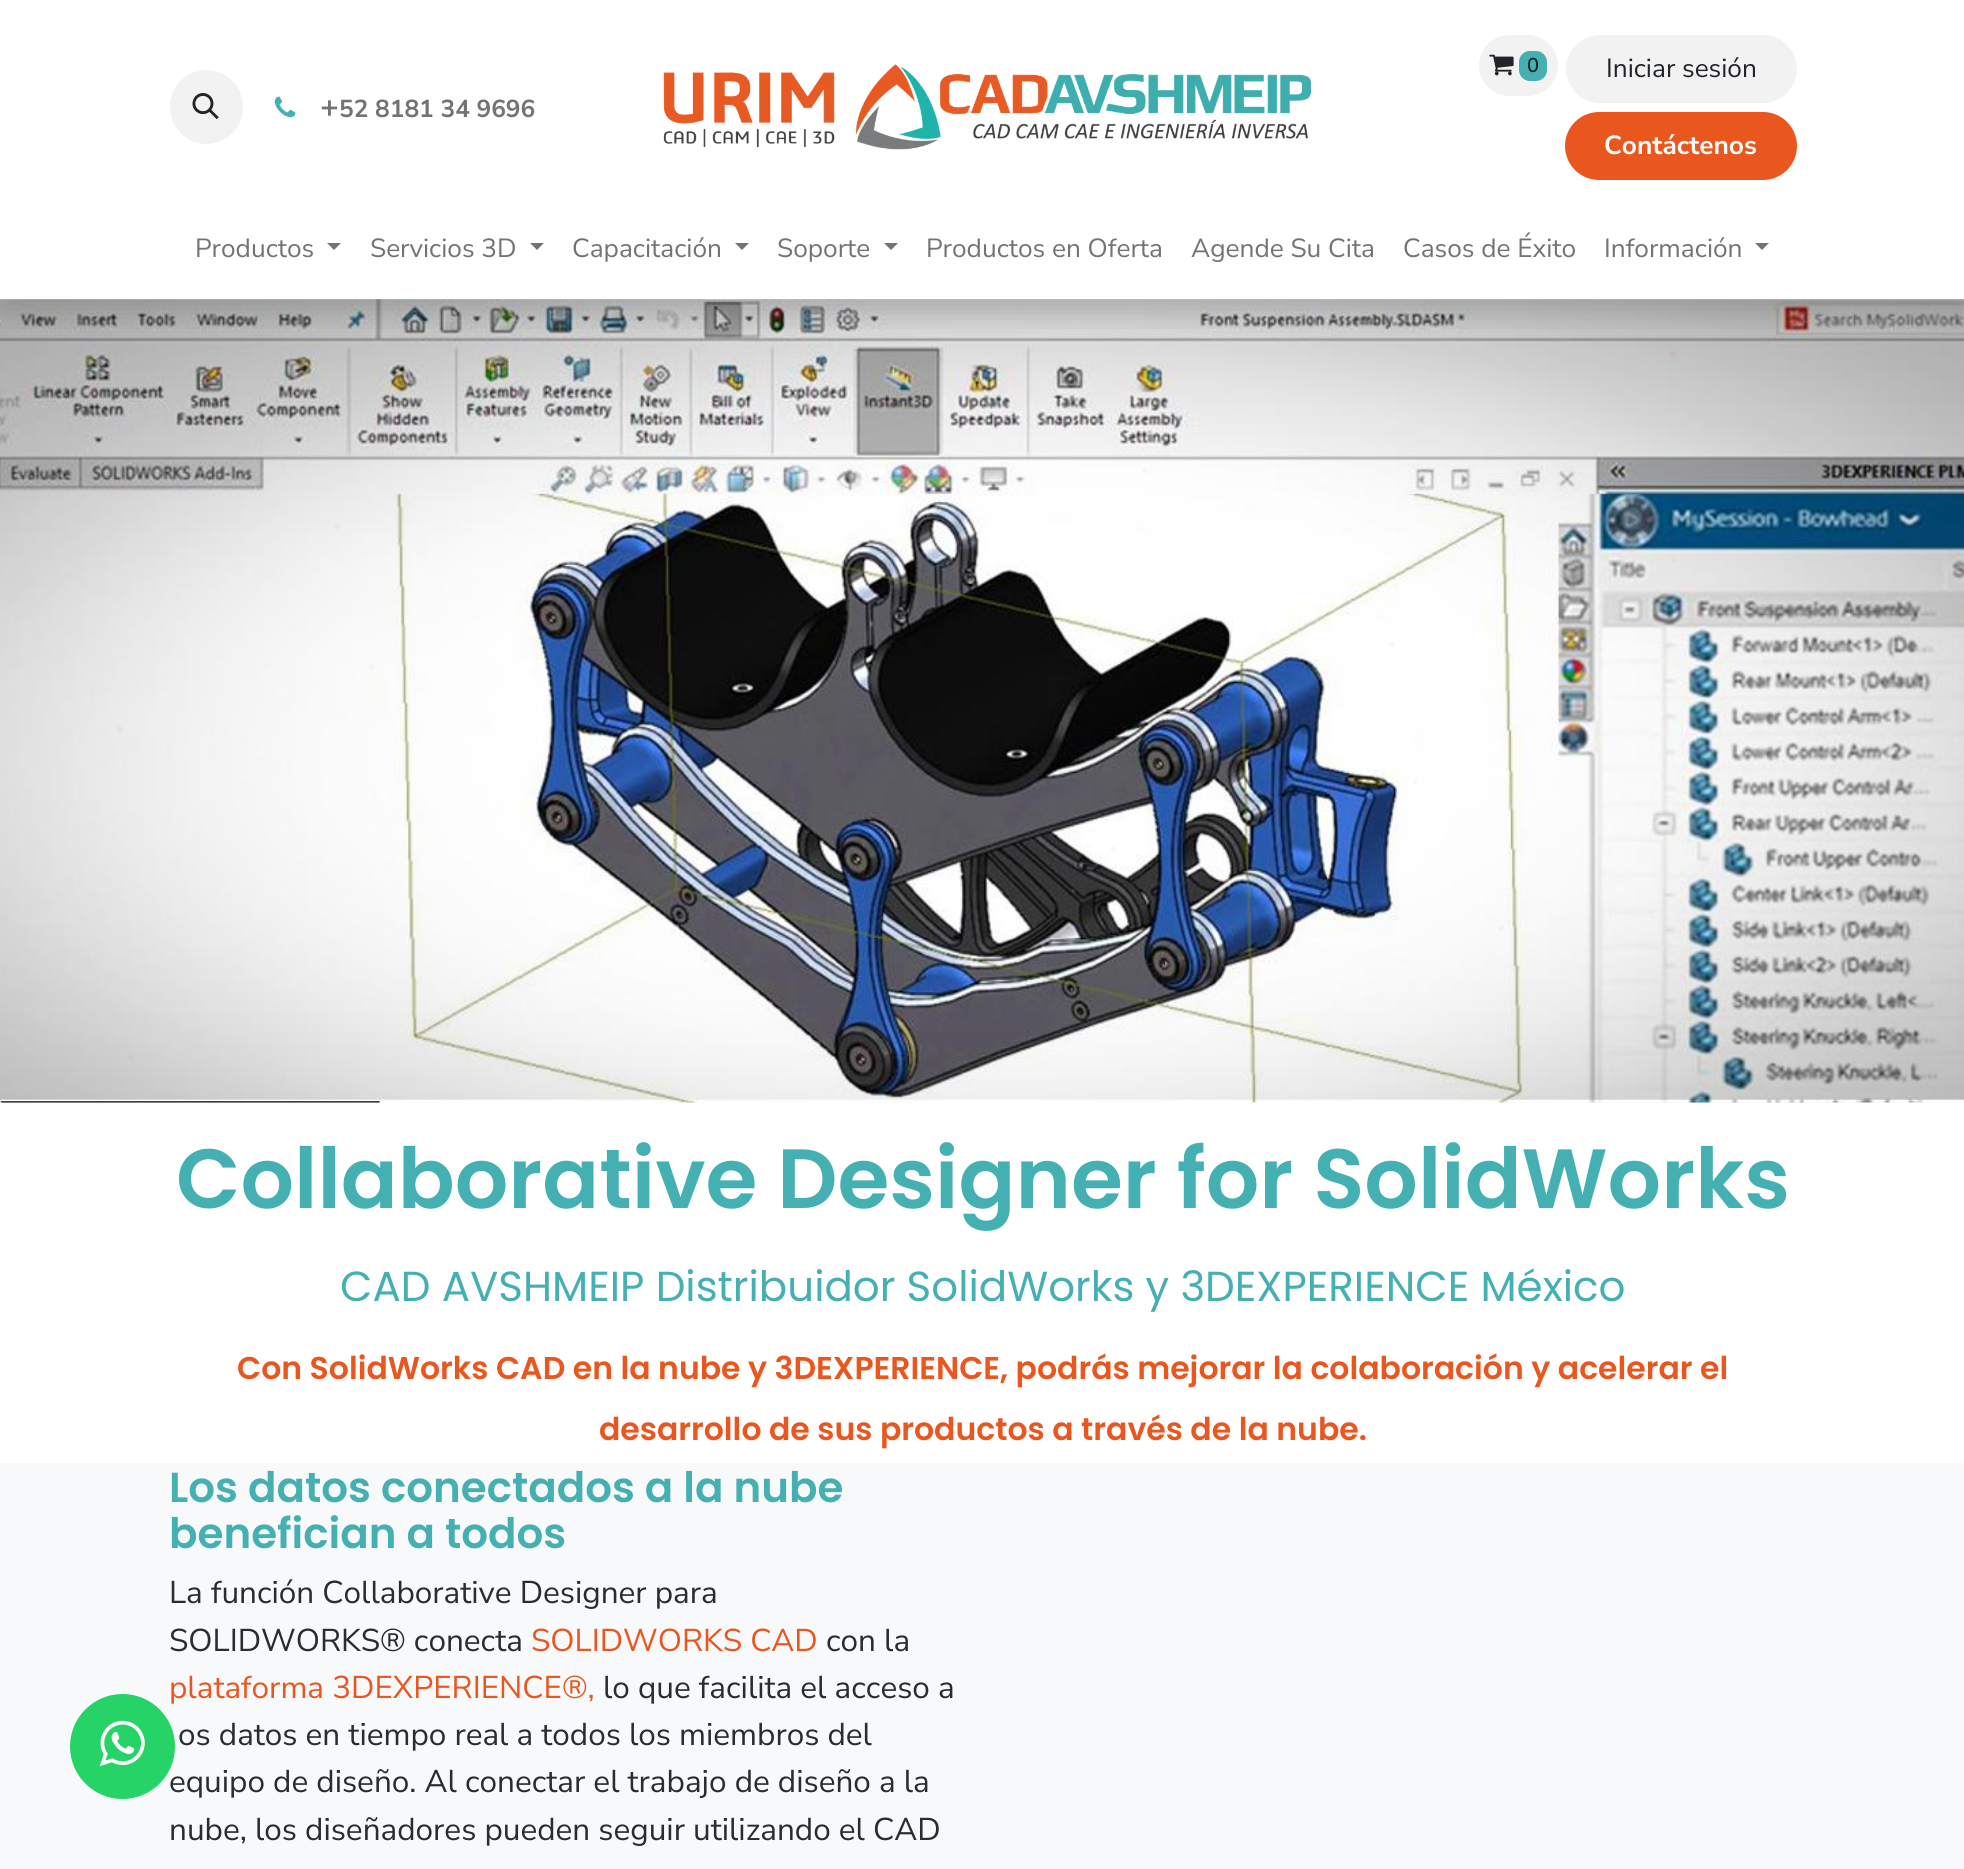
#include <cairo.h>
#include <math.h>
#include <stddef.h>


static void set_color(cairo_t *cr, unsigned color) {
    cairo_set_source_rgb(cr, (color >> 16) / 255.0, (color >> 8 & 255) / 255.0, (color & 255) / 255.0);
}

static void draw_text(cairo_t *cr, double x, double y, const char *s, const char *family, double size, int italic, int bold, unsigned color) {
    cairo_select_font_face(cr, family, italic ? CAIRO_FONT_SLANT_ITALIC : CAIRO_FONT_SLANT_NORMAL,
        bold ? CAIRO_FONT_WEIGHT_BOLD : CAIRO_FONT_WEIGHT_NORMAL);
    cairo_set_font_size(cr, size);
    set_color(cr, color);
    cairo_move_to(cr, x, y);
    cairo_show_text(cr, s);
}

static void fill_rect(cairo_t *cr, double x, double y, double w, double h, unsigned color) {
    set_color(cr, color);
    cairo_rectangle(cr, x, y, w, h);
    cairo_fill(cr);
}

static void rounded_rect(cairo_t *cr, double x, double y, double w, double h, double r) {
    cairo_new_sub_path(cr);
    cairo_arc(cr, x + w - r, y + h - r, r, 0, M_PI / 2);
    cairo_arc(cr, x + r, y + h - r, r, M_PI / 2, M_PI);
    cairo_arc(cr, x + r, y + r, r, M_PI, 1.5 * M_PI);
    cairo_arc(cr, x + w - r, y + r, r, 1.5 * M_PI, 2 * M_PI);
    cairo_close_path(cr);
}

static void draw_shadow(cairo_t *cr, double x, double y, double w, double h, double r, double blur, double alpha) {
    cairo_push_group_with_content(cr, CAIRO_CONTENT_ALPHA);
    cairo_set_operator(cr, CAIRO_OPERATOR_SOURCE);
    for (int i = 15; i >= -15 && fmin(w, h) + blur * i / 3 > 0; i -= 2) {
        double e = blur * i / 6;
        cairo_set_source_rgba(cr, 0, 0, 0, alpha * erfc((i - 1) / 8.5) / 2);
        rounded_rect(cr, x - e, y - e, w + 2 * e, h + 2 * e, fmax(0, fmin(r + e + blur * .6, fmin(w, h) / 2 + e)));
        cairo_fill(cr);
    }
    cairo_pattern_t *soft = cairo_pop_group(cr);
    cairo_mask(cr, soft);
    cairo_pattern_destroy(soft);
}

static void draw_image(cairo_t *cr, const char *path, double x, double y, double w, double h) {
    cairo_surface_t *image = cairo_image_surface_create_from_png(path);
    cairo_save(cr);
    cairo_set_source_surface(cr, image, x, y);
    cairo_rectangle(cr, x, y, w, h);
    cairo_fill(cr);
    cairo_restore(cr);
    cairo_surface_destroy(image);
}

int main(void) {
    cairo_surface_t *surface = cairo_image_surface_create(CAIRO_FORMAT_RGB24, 1964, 1869);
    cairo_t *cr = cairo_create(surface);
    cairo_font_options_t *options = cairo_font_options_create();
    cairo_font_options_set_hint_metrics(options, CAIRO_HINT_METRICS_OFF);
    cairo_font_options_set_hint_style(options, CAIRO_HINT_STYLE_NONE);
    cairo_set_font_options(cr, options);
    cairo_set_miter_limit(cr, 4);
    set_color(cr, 0xFFFFFF);
    cairo_paint(cr);
    fill_rect(cr, 0, 1463, 1964, 406, 0xF8F9FA);
    draw_text(cr, 169, 1698, "plataforma 3DEXPERIENCE®,", "Nunito Sans", 31.5, 0, 0, 0xE9561E);
    draw_text(cr, 169, 1792, "equipo de diseño. Al conectar el trabajo de diseño a la", "Nunito Sans", 31.5, 0, 0, 0x292C32);
    set_color(cr, 0x25D366);
    cairo_new_path(cr);
    cairo_arc(cr, 122.5, 1746.5, 52.5, 0, 2 * M_PI);
    cairo_fill(cr);
    draw_image(cr, "assets/img1.png", 99, 1720, 46, 47);
    draw_image(cr, "assets/img6.png", 0, 299, 1964, 804);
    draw_image(cr, "assets/img7.png", 117, 351, 1844, 709);
    cairo_save(cr);
    cairo_rectangle(cr, 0, 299, 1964, 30);
    cairo_clip(cr);
    set_color(cr, 0x000000);
    draw_shadow(cr, 0, 14, 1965, 299, 0, 14, 0.15);
    cairo_restore(cr);
    set_color(cr, 0xF2F2F2);
    rounded_rect(cr, 170, 70, 73, 74, 36.5);
    cairo_fill(cr);
    draw_image(cr, "assets/img2.png", 192, 93, 27, 27);
    draw_image(cr, "assets/img3.png", 274, 96, 22, 22);
    draw_text(cr, 320, 117, "+", "Nunito Sans", 31.5, 0, 1, 0x737373);
    draw_text(cr, 339, 117, "52 8181 34 9696", "Nunito Sans", 24.5, 0, 1, 0x737373);
    draw_image(cr, "assets/img4.png", 663, 64, 649, 86);
    set_color(cr, 0xF2F2F2);
    rounded_rect(cr, 1479, 35, 79, 61, 30.5);
    cairo_fill(cr);
    draw_image(cr, "assets/img5.png", 1489, 54, 25, 22);
    set_color(cr, 0x45B0B2);
    rounded_rect(cr, 1519, 51, 28, 30, 11);
    cairo_fill(cr);
    draw_text(cr, 1527, 72, "0", "Nunito Sans SemiBold", 20, 0, 0, 0x212529);
    set_color(cr, 0xF2F2F2);
    rounded_rect(cr, 1566, 35, 231, 68, 34);
    cairo_fill(cr);
    draw_text(cr, 1606, 77, "Iniciar sesión", "Nunito Sans", 26.25, 0, 0, 0x212529);
    set_color(cr, 0xE9561E);
    rounded_rect(cr, 1566, 113, 230, 66, 33);
    cairo_fill_preserve(cr);
    cairo_stroke(cr);
    draw_text(cr, 1604, 154, "Contáctenos", "Nunito Sans", 26.25, 0, 1, 0xFFFFFF);
    draw_text(cr, 195, 257, "Productos", "Nunito Sans", 26.25, 0, 0, 0x737373);
    cairo_new_path(cr);
    cairo_move_to(cr, 327, 243);
    cairo_line_to(cr, 341, 243);
    cairo_line_to(cr, 334, 250);
    cairo_close_path(cr);
    cairo_fill(cr);
    draw_text(cr, 370, 257, "Servicios 3D", "Nunito Sans", 26.25, 0, 0, 0x737373);
    cairo_new_path(cr);
    cairo_move_to(cr, 530, 243);
    cairo_line_to(cr, 544, 243);
    cairo_line_to(cr, 537, 250);
    cairo_close_path(cr);
    cairo_fill(cr);
    draw_text(cr, 572, 257, "Capacitación", "Nunito Sans", 26.25, 0, 0, 0x737373);
    cairo_new_path(cr);
    cairo_move_to(cr, 735, 243);
    cairo_line_to(cr, 749, 243);
    cairo_line_to(cr, 742, 250);
    cairo_close_path(cr);
    cairo_fill(cr);
    draw_text(cr, 777, 257, "Soporte", "Nunito Sans", 26.25, 0, 0, 0x737373);
    cairo_new_path(cr);
    cairo_move_to(cr, 884, 243);
    cairo_line_to(cr, 898, 243);
    cairo_line_to(cr, 891, 250);
    cairo_close_path(cr);
    cairo_fill(cr);
    draw_text(cr, 926, 257, "Productos en Oferta", "Nunito Sans", 26.25, 0, 0, 0x737373);
    draw_text(cr, 1191, 257, "Agende Su Cita", "Nunito Sans", 26.25, 0, 0, 0x737373);
    draw_text(cr, 1403, 257, "Casos de Éxito", "Nunito Sans", 26.25, 0, 0, 0x737373);
    draw_text(cr, 1604, 257, "Información", "Nunito Sans", 26.25, 0, 0, 0x737373);
    cairo_new_path(cr);
    cairo_move_to(cr, 1755, 243);
    cairo_line_to(cr, 1769, 243);
    cairo_line_to(cr, 1762, 250);
    cairo_close_path(cr);
    cairo_fill(cr);
    draw_text(cr, 176, 1208, "Collaborative Designer for SolidWorks", "Poppins SemiBold", 84, 0, 0, 0x45B0B2);
    draw_text(cr, 340, 1301, "CAD AVSHMEIP Distribuidor SolidWorks y 3DEXPERIENCE México", "Poppins", 42, 0, 0, 0x45B0B2);
    draw_text(cr, 237, 1379, "Con SolidWorks CAD en la nube y 3DEXPERIENCE, podrás mejorar la colaboración y acelerar el", "Poppins SemiBold", 31.5, 0, 0, 0xE9561E);
    draw_text(cr, 599, 1440, "desarrollo de sus productos a través de la nube.", "Poppins SemiBold", 31.5, 0, 0, 0xE9561E);
    draw_text(cr, 169, 1502, "Los datos conectados a la nube", "Poppins SemiBold", 42, 0, 0, 0x45B0B2);
    draw_text(cr, 169, 1548, "benefician a todos", "Poppins SemiBold", 42, 0, 0, 0x45B0B2);
    draw_text(cr, 169, 1603, "La función Collaborative Designer para", "Nunito Sans", 31.5, 0, 0, 0x292C32);
    draw_text(cr, 169, 1651, "SOLIDWORKS® conecta", "Nunito Sans", 31.5, 0, 0, 0x292C32);
    draw_text(cr, 531, 1651, "SOLIDWORKS CAD", "Nunito Sans", 31.5, 0, 0, 0xE9561E);
    draw_text(cr, 826, 1651, "con la", "Nunito Sans", 31.5, 0, 0, 0x292C32);
    draw_text(cr, 603, 1698, "lo que facilita el acceso a", "Nunito Sans", 31.5, 0, 0, 0x292C32);
    draw_text(cr, 178, 1745, "os datos en tiempo real a todos los miembros del", "Nunito Sans", 31.5, 0, 0, 0x292C32);
    draw_text(cr, 169, 1840, "nube, los diseñadores pueden seguir utilizando el CAD", "Nunito Sans", 31.5, 0, 0, 0x292C32);
    cairo_surface_write_to_png(surface, "output.png");
    cairo_font_options_destroy(options);
    cairo_destroy(cr);
    cairo_surface_destroy(surface);
    return 0;
}
